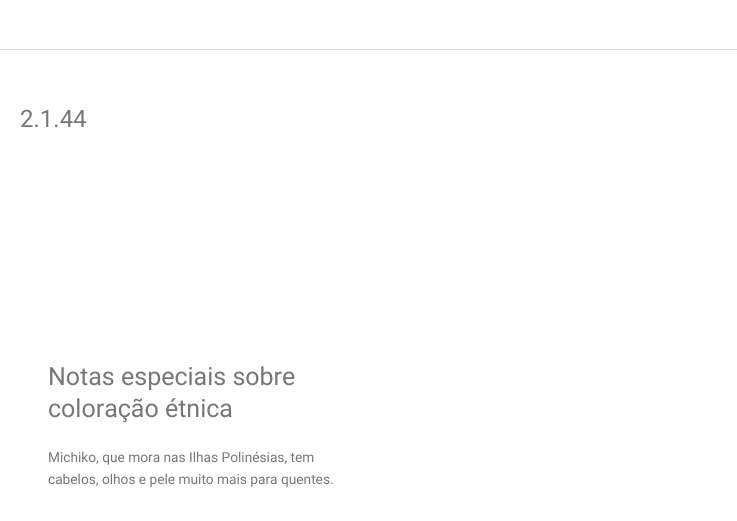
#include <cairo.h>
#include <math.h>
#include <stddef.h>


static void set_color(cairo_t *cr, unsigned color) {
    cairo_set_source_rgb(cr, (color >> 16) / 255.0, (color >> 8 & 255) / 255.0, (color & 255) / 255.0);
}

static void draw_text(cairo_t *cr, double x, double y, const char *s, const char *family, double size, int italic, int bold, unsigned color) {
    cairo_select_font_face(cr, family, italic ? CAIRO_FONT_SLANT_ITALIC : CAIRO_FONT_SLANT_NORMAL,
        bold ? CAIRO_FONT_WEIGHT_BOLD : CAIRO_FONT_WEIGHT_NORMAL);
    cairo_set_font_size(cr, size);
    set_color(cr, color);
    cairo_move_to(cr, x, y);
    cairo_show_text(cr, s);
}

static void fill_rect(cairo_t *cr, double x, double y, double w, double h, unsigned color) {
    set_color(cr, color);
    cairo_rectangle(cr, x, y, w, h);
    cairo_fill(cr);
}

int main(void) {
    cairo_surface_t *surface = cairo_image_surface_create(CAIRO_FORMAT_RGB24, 737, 521);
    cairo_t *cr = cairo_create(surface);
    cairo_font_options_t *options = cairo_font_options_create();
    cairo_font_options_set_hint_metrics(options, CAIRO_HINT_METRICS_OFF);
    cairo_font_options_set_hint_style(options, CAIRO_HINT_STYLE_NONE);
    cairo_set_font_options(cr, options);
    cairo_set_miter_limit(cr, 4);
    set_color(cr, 0xFFFFFF);
    cairo_paint(cr);
    fill_rect(cr, 0, 49, 737, 1, 0xDDDDDD);
    draw_text(cr, 20, 127, "2.1.44", "Roboto", 24, 0, 0, 0x777777);
    draw_text(cr, 48, 385, "Notas especiais sobre", "Roboto", 25, 0, 0, 0x777777);
    draw_text(cr, 48, 417, "coloração étnica", "Roboto", 25, 0, 0, 0x777777);
    draw_text(cr, 48, 462, "Michiko, que mora nas Ilhas Polinésias, tem", "Roboto", 13.7, 0, 0, 0x777777);
    draw_text(cr, 48, 484, "cabelos, olhos e pele muito mais para quentes.", "Roboto", 13.7, 0, 0, 0x777777);
    cairo_surface_write_to_png(surface, "output.png");
    cairo_font_options_destroy(options);
    cairo_destroy(cr);
    cairo_surface_destroy(surface);
    return 0;
}
